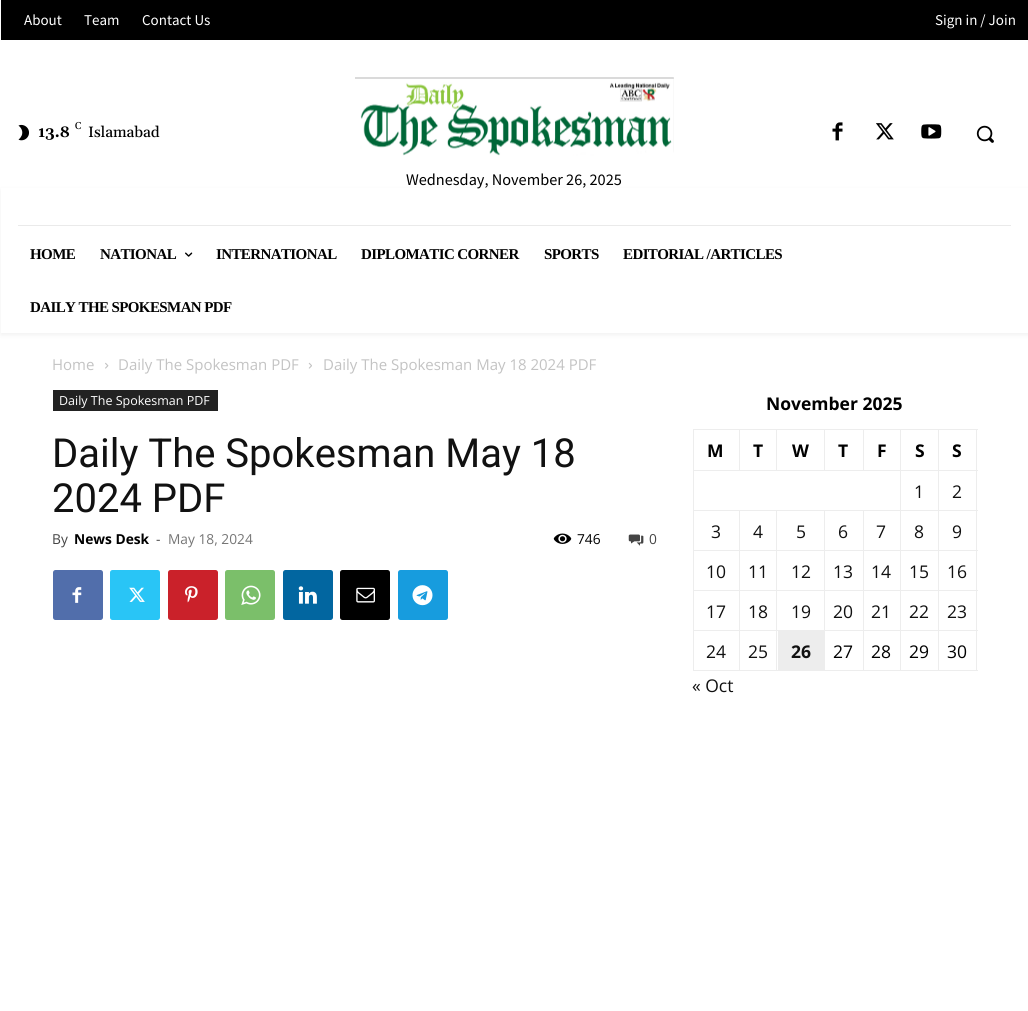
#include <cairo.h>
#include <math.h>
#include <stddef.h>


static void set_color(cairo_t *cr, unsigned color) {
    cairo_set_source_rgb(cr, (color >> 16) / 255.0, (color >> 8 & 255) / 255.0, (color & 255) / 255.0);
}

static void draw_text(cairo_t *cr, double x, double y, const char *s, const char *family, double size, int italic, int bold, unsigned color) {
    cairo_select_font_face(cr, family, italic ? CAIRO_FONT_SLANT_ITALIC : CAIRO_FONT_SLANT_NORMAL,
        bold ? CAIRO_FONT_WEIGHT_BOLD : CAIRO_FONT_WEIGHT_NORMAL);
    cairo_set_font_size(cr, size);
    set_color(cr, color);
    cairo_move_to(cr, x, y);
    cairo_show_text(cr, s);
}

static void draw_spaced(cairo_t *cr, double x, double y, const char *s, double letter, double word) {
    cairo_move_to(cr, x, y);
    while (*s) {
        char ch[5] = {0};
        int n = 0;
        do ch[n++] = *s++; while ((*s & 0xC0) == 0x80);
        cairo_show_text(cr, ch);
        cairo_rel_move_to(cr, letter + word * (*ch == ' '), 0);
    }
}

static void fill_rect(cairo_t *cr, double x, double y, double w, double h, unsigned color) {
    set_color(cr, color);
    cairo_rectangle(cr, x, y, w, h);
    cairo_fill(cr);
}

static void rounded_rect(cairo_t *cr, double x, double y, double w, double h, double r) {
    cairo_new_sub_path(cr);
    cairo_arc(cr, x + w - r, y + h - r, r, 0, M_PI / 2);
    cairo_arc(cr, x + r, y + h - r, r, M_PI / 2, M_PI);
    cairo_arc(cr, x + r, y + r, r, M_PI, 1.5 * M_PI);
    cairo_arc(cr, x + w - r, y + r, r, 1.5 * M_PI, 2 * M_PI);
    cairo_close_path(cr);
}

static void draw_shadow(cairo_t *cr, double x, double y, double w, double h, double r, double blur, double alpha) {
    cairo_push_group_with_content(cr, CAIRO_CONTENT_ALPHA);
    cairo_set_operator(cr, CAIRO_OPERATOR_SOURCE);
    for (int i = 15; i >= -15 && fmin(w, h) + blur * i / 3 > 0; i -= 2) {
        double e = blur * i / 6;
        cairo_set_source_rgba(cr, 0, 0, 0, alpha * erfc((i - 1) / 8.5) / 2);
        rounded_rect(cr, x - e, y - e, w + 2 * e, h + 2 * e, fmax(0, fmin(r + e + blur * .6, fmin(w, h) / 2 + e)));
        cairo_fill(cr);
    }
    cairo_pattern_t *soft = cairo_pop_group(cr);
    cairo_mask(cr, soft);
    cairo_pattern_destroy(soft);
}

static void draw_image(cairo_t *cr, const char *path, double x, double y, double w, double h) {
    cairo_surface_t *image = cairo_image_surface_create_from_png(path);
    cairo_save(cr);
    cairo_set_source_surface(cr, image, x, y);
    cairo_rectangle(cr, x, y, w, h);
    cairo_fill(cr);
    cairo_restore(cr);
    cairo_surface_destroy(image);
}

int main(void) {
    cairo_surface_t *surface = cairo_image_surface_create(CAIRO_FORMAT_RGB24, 1028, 1011);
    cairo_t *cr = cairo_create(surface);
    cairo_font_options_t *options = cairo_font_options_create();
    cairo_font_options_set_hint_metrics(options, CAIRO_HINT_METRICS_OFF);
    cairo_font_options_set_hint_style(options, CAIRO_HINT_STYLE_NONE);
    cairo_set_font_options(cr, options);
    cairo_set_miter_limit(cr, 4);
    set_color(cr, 0xFFFFFF);
    cairo_paint(cr);
    fill_rect(cr, 1, 0, 1027, 40, 0x000000);
    draw_text(cr, 24, 25, "About", "Source Sans Pro", 15, 0, 0, 0xFFFFFF);
    draw_text(cr, 84, 25, "Team", "Source Sans Pro", 15, 0, 0, 0xFFFFFF);
    draw_text(cr, 142, 25, "Contact Us", "Source Sans Pro", 15, 0, 0, 0xFFFFFF);
    draw_text(cr, 935, 25, "Sign in / Join", "Source Sans Pro", 15, 0, 0, 0xFFFFFF);
    draw_image(cr, "assets/img1.png", 18, 124, 11, 17);
    draw_text(cr, 38, 137, "13.8", "Gelasio", 15, 0, 1, 0x000000);
    draw_text(cr, 75, 129, "C", "Gelasio", 10, 0, 0, 0x000000);
    draw_text(cr, 88, 137, "Islamabad", "Gelasio Medium", 15, 0, 0, 0x000000);
    draw_image(cr, "assets/img2.png", 832, 122, 11, 19);
    draw_image(cr, "assets/img3.png", 876, 123, 18, 17);
    draw_image(cr, "assets/img4.png", 921, 124, 21, 15);
    draw_image(cr, "assets/img5.png", 976, 125, 18, 18);
    draw_image(cr, "assets/img6.png", 355, 77, 319, 79);
    draw_text(cr, 406, 185, "Wednesday, November 26, 2025", "Source Sans Pro", 16.25, 0, 0, 0x000000);
    fill_rect(cr, 18, 225, 993, 1, 0xEAEAEA);
    cairo_save(cr);
    cairo_set_fill_rule(cr, CAIRO_FILL_RULE_EVEN_ODD);
    cairo_new_path(cr);
    cairo_move_to(cr, 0, 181);
    cairo_line_to(cr, 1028, 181);
    cairo_line_to(cr, 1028, 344);
    cairo_line_to(cr, 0, 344);
    cairo_close_path(cr);
    cairo_move_to(cr, 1, 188);
    cairo_line_to(cr, 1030, 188);
    cairo_line_to(cr, 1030, 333);
    cairo_line_to(cr, 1, 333);
    cairo_close_path(cr);
    cairo_clip(cr);
    set_color(cr, 0x000000);
    draw_shadow(cr, 1, 190, 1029, 145, 0, 2.5, 0.06);
    cairo_restore(cr);
    cairo_select_font_face(cr, "Liberation Serif", CAIRO_FONT_SLANT_NORMAL, CAIRO_FONT_WEIGHT_BOLD);
    cairo_set_font_size(cr, 15);
    set_color(cr, 0x000000);
    draw_spaced(cr, 30, 259, "HOME", -0.6, 0);
    draw_spaced(cr, 100, 259, "NATIONAL", -0.6, 0);
    draw_image(cr, "assets/img7.png", 185, 252, 8, 5);
    draw_spaced(cr, 216, 259, "INTERNATIONAL", -0.6, 0);
    draw_spaced(cr, 361, 259, "DIPLOMATIC CORNER", -0.6, 0);
    draw_spaced(cr, 544, 259, "SPORTS", -0.6, 0);
    draw_spaced(cr, 623, 259, "EDITORIAL /ARTICLES", -0.6, 0);
    draw_spaced(cr, 30, 312, "DAILY THE SPOKESMAN PDF", -0.6, 0);
    draw_text(cr, 52, 370, "Home", "Open Sans", 15, 0, 0, 0xC3C3C3);
    draw_image(cr, "assets/img8.png", 105, 362, 4, 7);
    draw_text(cr, 118, 370, "Daily The Spokesman PDF", "Open Sans", 15, 0, 0, 0xC3C3C3);
    draw_image(cr, "assets/img9.png", 308, 362, 4, 7);
    draw_text(cr, 323, 370, "Daily The Spokesman May 18 2024 PDF", "Open Sans", 15, 0, 0, 0xC3C3C3);
    fill_rect(cr, 53, 390, 165, 21, 0x222222);
    draw_text(cr, 59, 405, "Daily The Spokesman PDF", "Open Sans", 12.5, 0, 0, 0xFFFFFF);
    draw_text(cr, 52, 467, "Daily The Spokesman May 18", "Roboto", 40, 0, 0, 0x111111);
    draw_text(cr, 52, 512, "2024 PDF", "Roboto", 40, 0, 0, 0x111111);
    draw_text(cr, 52, 544, "By", "Open Sans", 13.75, 0, 0, 0x444444);
    draw_text(cr, 74, 544, "News Desk", "Open Sans", 13.75, 0, 1, 0x000000);
    draw_text(cr, 156, 544, "-", "Open Sans", 13.75, 0, 0, 0x444444);
    draw_text(cr, 168, 544, "May 18, 2024", "Open Sans", 13.75, 0, 0, 0x767676);
    draw_image(cr, "assets/img10.png", 553, 533, 19, 11);
    draw_text(cr, 577, 544, "746", "Open Sans", 13.75, 0, 0, 0x000000);
    draw_image(cr, "assets/img11.png", 628, 534, 16, 12);
    draw_text(cr, 649, 544, "0", "Open Sans", 13.75, 0, 0, 0x444444);
    set_color(cr, 0x516EAB);
    rounded_rect(cr, 53, 570, 50, 50, 2.5);
    cairo_fill(cr);
    draw_image(cr, "assets/img12.png", 72, 587, 10, 16);
    set_color(cr, 0x29C5F6);
    rounded_rect(cr, 110, 570, 50, 50, 2.5);
    cairo_fill(cr);
    draw_image(cr, "assets/img13.png", 129, 587, 16, 15);
    set_color(cr, 0xCA212A);
    rounded_rect(cr, 168, 570, 50, 50, 2.5);
    cairo_fill(cr);
    draw_image(cr, "assets/img14.png", 185, 586, 13, 17);
    set_color(cr, 0x7BBF6A);
    rounded_rect(cr, 225, 570, 50, 50, 2.5);
    cairo_fill(cr);
    draw_image(cr, "assets/img15.png", 241, 585, 20, 20);
    set_color(cr, 0x0266A0);
    rounded_rect(cr, 283, 570, 50, 50, 2.5);
    cairo_fill(cr);
    draw_image(cr, "assets/img16.png", 298, 586, 19, 18);
    set_color(cr, 0x000000);
    rounded_rect(cr, 340, 570, 50, 50, 2.5);
    cairo_fill(cr);
    draw_image(cr, "assets/img17.png", 356, 587, 19, 16);
    set_color(cr, 0x179CDE);
    rounded_rect(cr, 398, 570, 50, 50, 2.5);
    cairo_fill(cr);
    draw_image(cr, "assets/img18.png", 412, 585, 21, 21);
    draw_text(cr, 766, 410, "November 2025", "Open Sans", 17.5, 0, 1, 0x000000);
    fill_rect(cr, 938, 429, 40, 1, 0xEDEDED);
    fill_rect(cr, 938, 470, 40, 1, 0xEDEDED);
    fill_rect(cr, 938, 510, 40, 1, 0xEDEDED);
    fill_rect(cr, 938, 550, 40, 1, 0xEDEDED);
    fill_rect(cr, 938, 590, 40, 1, 0xEDEDED);
    fill_rect(cr, 938, 630, 40, 1, 0xEDEDED);
    fill_rect(cr, 976, 630, 1, 41, 0xEDEDED);
    fill_rect(cr, 938, 670, 40, 1, 0xEDEDED);
    fill_rect(cr, 938, 630, 1, 41, 0xEDEDED);
    fill_rect(cr, 900, 630, 39, 1, 0xEDEDED);
    fill_rect(cr, 938, 590, 1, 41, 0xEDEDED);
    fill_rect(cr, 900, 590, 39, 1, 0xEDEDED);
    fill_rect(cr, 938, 550, 1, 41, 0xEDEDED);
    fill_rect(cr, 900, 550, 39, 1, 0xEDEDED);
    fill_rect(cr, 938, 510, 1, 41, 0xEDEDED);
    fill_rect(cr, 900, 510, 39, 1, 0xEDEDED);
    fill_rect(cr, 938, 470, 1, 41, 0xEDEDED);
    fill_rect(cr, 900, 470, 39, 1, 0xEDEDED);
    fill_rect(cr, 938, 429, 1, 42, 0xEDEDED);
    fill_rect(cr, 900, 429, 39, 1, 0xEDEDED);
    fill_rect(cr, 900, 670, 39, 1, 0xEDEDED);
    fill_rect(cr, 900, 630, 1, 41, 0xEDEDED);
    fill_rect(cr, 863, 630, 38, 1, 0xEDEDED);
    fill_rect(cr, 900, 590, 1, 41, 0xEDEDED);
    fill_rect(cr, 863, 590, 38, 1, 0xEDEDED);
    fill_rect(cr, 900, 550, 1, 41, 0xEDEDED);
    fill_rect(cr, 863, 550, 38, 1, 0xEDEDED);
    fill_rect(cr, 900, 510, 1, 41, 0xEDEDED);
    fill_rect(cr, 863, 510, 38, 1, 0xEDEDED);
    fill_rect(cr, 900, 470, 1, 41, 0xEDEDED);
    fill_rect(cr, 693, 470, 208, 1, 0xEDEDED);
    fill_rect(cr, 900, 429, 1, 42, 0xEDEDED);
    fill_rect(cr, 863, 429, 38, 1, 0xEDEDED);
    fill_rect(cr, 863, 429, 1, 42, 0xEDEDED);
    fill_rect(cr, 824, 429, 40, 1, 0xEDEDED);
    fill_rect(cr, 824, 429, 1, 42, 0xEDEDED);
    fill_rect(cr, 776, 429, 49, 1, 0xEDEDED);
    fill_rect(cr, 776, 429, 1, 42, 0xEDEDED);
    fill_rect(cr, 739, 429, 39, 1, 0xEDEDED);
    fill_rect(cr, 739, 429, 1, 42, 0xEDEDED);
    fill_rect(cr, 693, 429, 47, 1, 0xEDEDED);
    fill_rect(cr, 863, 670, 38, 1, 0xEDEDED);
    fill_rect(cr, 863, 630, 1, 41, 0xEDEDED);
    fill_rect(cr, 824, 630, 40, 1, 0xEDEDED);
    fill_rect(cr, 863, 590, 1, 41, 0xEDEDED);
    fill_rect(cr, 824, 590, 40, 1, 0xEDEDED);
    fill_rect(cr, 863, 550, 1, 41, 0xEDEDED);
    fill_rect(cr, 824, 550, 40, 1, 0xEDEDED);
    fill_rect(cr, 863, 510, 1, 41, 0xEDEDED);
    fill_rect(cr, 824, 510, 40, 1, 0xEDEDED);
    fill_rect(cr, 824, 670, 40, 1, 0xEDEDED);
    fill_rect(cr, 824, 630, 1, 41, 0xEDEDED);
    fill_rect(cr, 776, 630, 49, 1, 0xEDEDED);
    fill_rect(cr, 824, 590, 1, 41, 0xEDEDED);
    fill_rect(cr, 776, 590, 49, 1, 0xEDEDED);
    fill_rect(cr, 824, 550, 1, 41, 0xEDEDED);
    fill_rect(cr, 776, 550, 49, 1, 0xEDEDED);
    fill_rect(cr, 824, 510, 1, 41, 0xEDEDED);
    fill_rect(cr, 776, 510, 49, 1, 0xEDEDED);
    fill_rect(cr, 776, 670, 49, 1, 0xEDEDED);
    fill_rect(cr, 776, 630, 1, 41, 0xEDEDED);
    fill_rect(cr, 739, 630, 39, 1, 0xEDEDED);
    fill_rect(cr, 776, 590, 1, 41, 0xEDEDED);
    fill_rect(cr, 739, 590, 39, 1, 0xEDEDED);
    fill_rect(cr, 776, 550, 1, 41, 0xEDEDED);
    fill_rect(cr, 739, 550, 39, 1, 0xEDEDED);
    fill_rect(cr, 776, 510, 1, 41, 0xEDEDED);
    fill_rect(cr, 739, 510, 39, 1, 0xEDEDED);
    fill_rect(cr, 739, 670, 39, 1, 0xEDEDED);
    fill_rect(cr, 739, 630, 1, 41, 0xEDEDED);
    fill_rect(cr, 693, 630, 47, 1, 0xEDEDED);
    fill_rect(cr, 739, 590, 1, 41, 0xEDEDED);
    fill_rect(cr, 693, 590, 47, 1, 0xEDEDED);
    fill_rect(cr, 739, 550, 1, 41, 0xEDEDED);
    fill_rect(cr, 693, 550, 47, 1, 0xEDEDED);
    fill_rect(cr, 739, 510, 1, 41, 0xEDEDED);
    fill_rect(cr, 693, 510, 47, 1, 0xEDEDED);
    fill_rect(cr, 693, 670, 47, 1, 0xEDEDED);
    fill_rect(cr, 693, 630, 1, 41, 0xEDEDED);
    fill_rect(cr, 693, 590, 1, 41, 0xEDEDED);
    fill_rect(cr, 693, 550, 1, 41, 0xEDEDED);
    fill_rect(cr, 693, 510, 1, 41, 0xEDEDED);
    fill_rect(cr, 693, 470, 1, 41, 0xEDEDED);
    fill_rect(cr, 693, 429, 1, 42, 0xEDEDED);
    draw_text(cr, 707, 457, "M", "Open Sans", 17.5, 0, 1, 0x000000);
    draw_text(cr, 753, 457, "T", "Open Sans", 17.5, 0, 1, 0x000000);
    draw_text(cr, 792, 457, "W", "Open Sans", 17.5, 0, 1, 0x000000);
    draw_text(cr, 838, 457, "T", "Open Sans", 17.5, 0, 1, 0x000000);
    draw_text(cr, 877, 457, "F", "Open Sans", 17.5, 0, 1, 0x000000);
    draw_text(cr, 915, 457, "S", "Open Sans", 17.5, 0, 1, 0x000000);
    fill_rect(cr, 976, 590, 1, 41, 0xEDEDED);
    fill_rect(cr, 976, 550, 1, 41, 0xEDEDED);
    fill_rect(cr, 976, 510, 1, 41, 0xEDEDED);
    fill_rect(cr, 976, 470, 1, 41, 0xEDEDED);
    fill_rect(cr, 976, 429, 1, 42, 0xEDEDED);
    draw_text(cr, 952, 457, "S", "Open Sans", 17.5, 0, 1, 0x000000);
    draw_text(cr, 914, 498, "1", "Open Sans", 17.5, 0, 0, 0x111111);
    draw_text(cr, 952, 498, "2", "Open Sans", 17.5, 0, 0, 0x111111);
    draw_text(cr, 711, 538, "3", "Open Sans", 17.5, 0, 0, 0x111111);
    draw_text(cr, 753, 538, "4", "Open Sans", 17.5, 0, 0, 0x111111);
    draw_text(cr, 796, 538, "5", "Open Sans", 17.5, 0, 0, 0x111111);
    draw_text(cr, 838, 538, "6", "Open Sans", 17.5, 0, 0, 0x111111);
    draw_text(cr, 876, 538, "7", "Open Sans", 17.5, 0, 0, 0x111111);
    draw_text(cr, 914, 538, "8", "Open Sans", 17.5, 0, 0, 0x111111);
    draw_text(cr, 952, 538, "9", "Open Sans", 17.5, 0, 0, 0x111111);
    draw_text(cr, 706, 578, "10", "Open Sans", 17.5, 0, 0, 0x111111);
    draw_text(cr, 748, 578, "11", "Open Sans", 17.5, 0, 0, 0x111111);
    draw_text(cr, 791, 578, "12", "Open Sans", 17.5, 0, 0, 0x111111);
    draw_text(cr, 833, 578, "13", "Open Sans", 17.5, 0, 0, 0x111111);
    draw_text(cr, 871, 578, "14", "Open Sans", 17.5, 0, 0, 0x111111);
    draw_text(cr, 909, 578, "15", "Open Sans", 17.5, 0, 0, 0x111111);
    draw_text(cr, 947, 578, "16", "Open Sans", 17.5, 0, 0, 0x111111);
    draw_text(cr, 706, 618, "17", "Open Sans", 17.5, 0, 0, 0x111111);
    draw_text(cr, 748, 618, "18", "Open Sans", 17.5, 0, 0, 0x111111);
    draw_text(cr, 791, 618, "19", "Open Sans", 17.5, 0, 0, 0x111111);
    draw_text(cr, 833, 618, "20", "Open Sans", 17.5, 0, 0, 0x111111);
    draw_text(cr, 871, 618, "21", "Open Sans", 17.5, 0, 0, 0x111111);
    draw_text(cr, 909, 618, "22", "Open Sans", 17.5, 0, 0, 0x111111);
    draw_text(cr, 947, 618, "23", "Open Sans", 17.5, 0, 0, 0x111111);
    draw_text(cr, 706, 658, "24", "Open Sans", 17.5, 0, 0, 0x111111);
    draw_text(cr, 748, 658, "25", "Open Sans", 17.5, 0, 0, 0x111111);
    fill_rect(cr, 778, 631, 46, 39, 0xEDEDED);
    draw_text(cr, 791, 658, "26", "Open Sans", 17.5, 0, 1, 0x111111);
    draw_text(cr, 833, 658, "27", "Open Sans", 17.5, 0, 0, 0x000000);
    draw_text(cr, 871, 658, "28", "Open Sans", 17.5, 0, 0, 0x000000);
    draw_text(cr, 909, 658, "29", "Open Sans", 17.5, 0, 0, 0x000000);
    draw_text(cr, 947, 658, "30", "Open Sans", 17.5, 0, 0, 0x000000);
    draw_text(cr, 692, 692, "« Oct", "Open Sans", 17.5, 0, 0, 0x111111);
    cairo_surface_write_to_png(surface, "output.png");
    cairo_font_options_destroy(options);
    cairo_destroy(cr);
    cairo_surface_destroy(surface);
    return 0;
}
